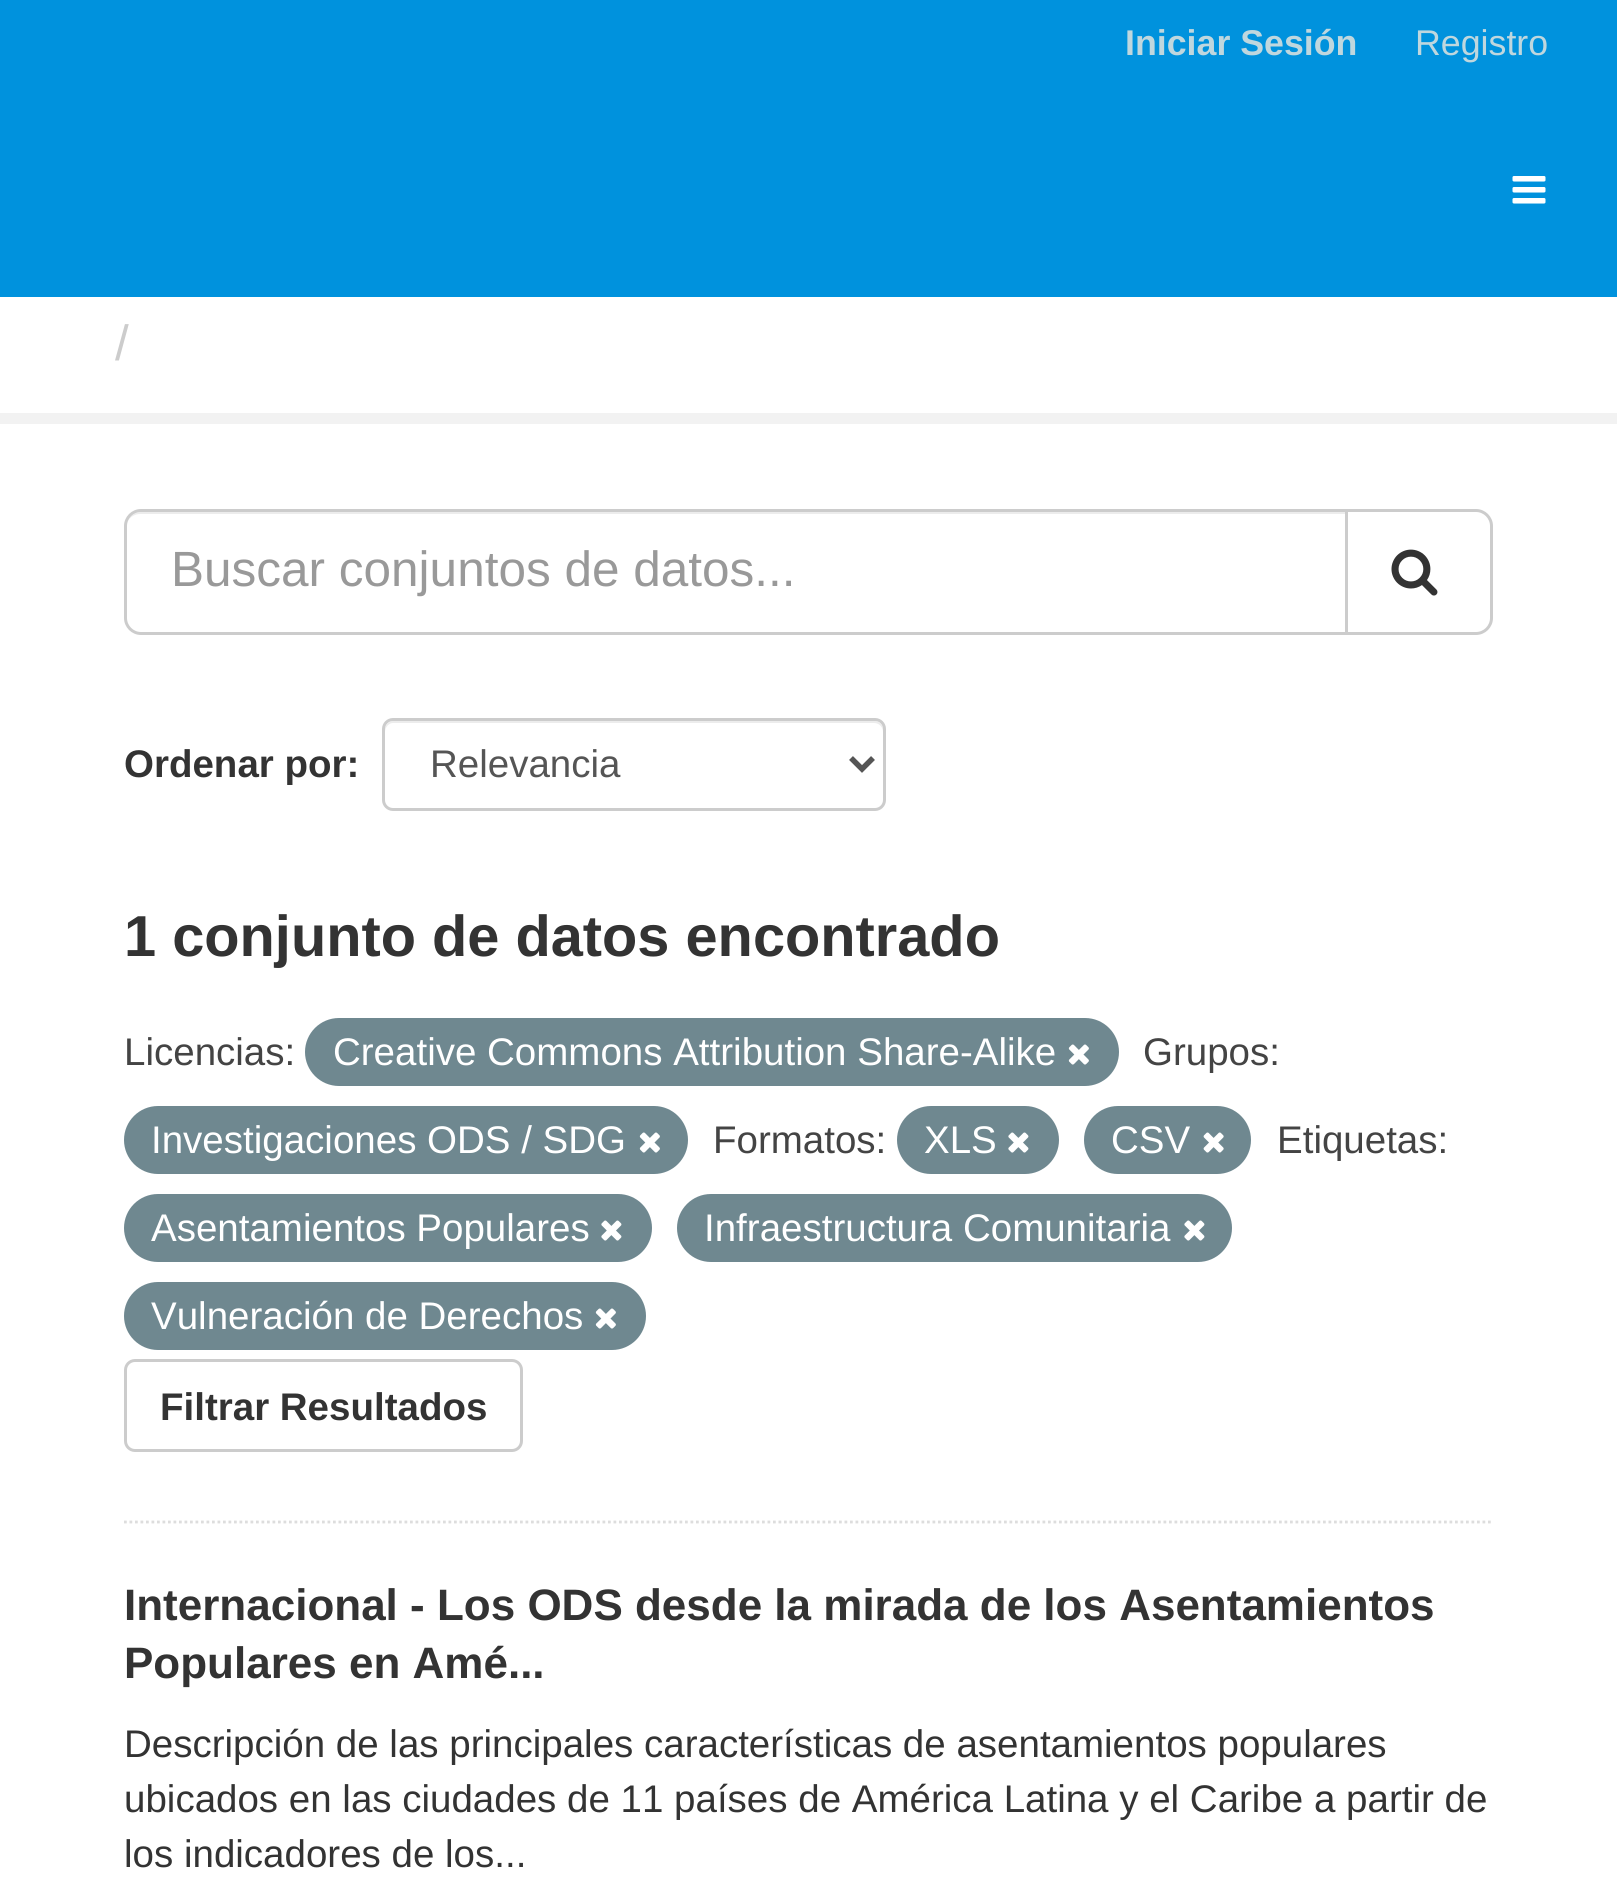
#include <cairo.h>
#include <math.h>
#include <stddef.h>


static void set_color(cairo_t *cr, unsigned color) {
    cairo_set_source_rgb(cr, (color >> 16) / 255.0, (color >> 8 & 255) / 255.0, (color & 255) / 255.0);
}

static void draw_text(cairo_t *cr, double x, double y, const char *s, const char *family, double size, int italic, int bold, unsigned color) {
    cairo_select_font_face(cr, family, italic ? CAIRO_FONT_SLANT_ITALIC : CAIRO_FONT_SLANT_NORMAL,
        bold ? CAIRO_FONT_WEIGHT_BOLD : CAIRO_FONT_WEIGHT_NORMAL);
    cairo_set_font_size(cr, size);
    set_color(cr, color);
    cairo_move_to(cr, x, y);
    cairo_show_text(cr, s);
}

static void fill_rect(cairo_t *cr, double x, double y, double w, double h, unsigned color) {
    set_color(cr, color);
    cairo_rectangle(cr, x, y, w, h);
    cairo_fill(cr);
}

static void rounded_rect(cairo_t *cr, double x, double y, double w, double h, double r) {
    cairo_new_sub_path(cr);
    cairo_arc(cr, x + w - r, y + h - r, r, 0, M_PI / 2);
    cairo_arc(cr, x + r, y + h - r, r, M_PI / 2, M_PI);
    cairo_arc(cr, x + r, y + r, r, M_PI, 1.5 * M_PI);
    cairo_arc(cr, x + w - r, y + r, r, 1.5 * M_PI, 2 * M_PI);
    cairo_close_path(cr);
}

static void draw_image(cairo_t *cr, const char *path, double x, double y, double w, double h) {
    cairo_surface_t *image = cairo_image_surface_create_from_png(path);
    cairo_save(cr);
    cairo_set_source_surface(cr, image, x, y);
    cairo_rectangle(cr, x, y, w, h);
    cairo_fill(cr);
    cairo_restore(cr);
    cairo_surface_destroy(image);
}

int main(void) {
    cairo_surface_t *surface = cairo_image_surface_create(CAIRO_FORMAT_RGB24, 1617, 1883);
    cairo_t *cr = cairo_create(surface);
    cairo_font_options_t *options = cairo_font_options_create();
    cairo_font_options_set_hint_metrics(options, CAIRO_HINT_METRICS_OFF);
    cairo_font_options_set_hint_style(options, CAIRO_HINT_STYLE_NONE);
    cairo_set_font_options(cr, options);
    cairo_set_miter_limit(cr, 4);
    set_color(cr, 0xFFFFFF);
    cairo_paint(cr);
    fill_rect(cr, 0, 0, 1617, 297, 0x0092DD);
    draw_text(cr, 1125, 55, "Iniciar Sesión", "Liberation Sans", 35.75, 0, 1, 0xBFD7DE);
    draw_text(cr, 1415, 55, "Registro", "Liberation Sans", 35.75, 0, 0, 0xBFD7DE);
    draw_image(cr, "assets/img1.png", 1512, 176, 34, 28);
    draw_text(cr, 115, 360, "/", "Liberation Sans", 49.5, 0, 0, 0xCCCCCC);
    cairo_rectangle(cr, -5.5, 418.5, 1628, 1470);
    set_color(cr, 0xF2F2F2);
    cairo_set_line_width(cr, 11);
    cairo_stroke(cr);
    cairo_new_path(cr);
    cairo_move_to(cr, 124, 1522);
    cairo_line_to(cr, 1493, 1522);
    set_color(cr, 0xDDDDDD);
    cairo_set_line_width(cr, 2.8);
    cairo_set_dash(cr, (double[]){2.75, 2.75}, 2, 0);
    cairo_stroke(cr);
    set_color(cr, 0xECECEC);
    cairo_new_path(cr);
    cairo_move_to(cr, 140, 514);
    cairo_line_to(cr, 1345, 514);
    cairo_line_to(cr, 1345, 512);
    cairo_line_to(cr, 141, 512);
    cairo_curve_to(cr, 135, 512, 130, 516, 128, 521);
    cairo_curve_to(cr, 130, 517, 135, 514, 140, 514);
    cairo_close_path(cr);
    cairo_fill(cr);
    cairo_new_path(cr);
    cairo_move_to(cr, 141, 510.5);
    cairo_line_to(cr, 1346.5, 510.5);
    cairo_line_to(cr, 1346.5, 633.5);
    cairo_line_to(cr, 141, 633.5);
    cairo_curve_to(cr, 132.5, 633.5, 125.5, 626.5, 125.5, 618);
    cairo_line_to(cr, 125.5, 526);
    cairo_curve_to(cr, 125.5, 517.5, 132.5, 510.5, 141, 510.5);
    cairo_close_path(cr);
    set_color(cr, 0xCCCCCC);
    cairo_set_line_width(cr, 3);
    cairo_set_dash(cr, NULL, 0, 0);
    cairo_stroke(cr);
    draw_text(cr, 171, 586, "Buscar conjuntos de datos...", "Liberation Sans", 49.5, 0, 0, 0x999999);
    set_color(cr, 0xFFFFFF);
    cairo_new_path(cr);
    cairo_move_to(cr, 1346.5, 510.5);
    cairo_line_to(cr, 1476, 510.5);
    cairo_curve_to(cr, 1484.5, 510.5, 1491.5, 517.5, 1491.5, 526);
    cairo_line_to(cr, 1491.5, 618);
    cairo_curve_to(cr, 1491.5, 626.5, 1484.5, 633.5, 1476, 633.5);
    cairo_line_to(cr, 1346.5, 633.5);
    cairo_close_path(cr);
    cairo_fill_preserve(cr);
    set_color(cr, 0xCCCCCC);
    cairo_stroke(cr);
    draw_image(cr, "assets/img2.png", 1391, 549, 47, 47);
    draw_text(cr, 124, 777, "Ordenar por:", "Liberation Sans", 38.5, 0, 1, 0x333333);
    set_color(cr, 0xECECEC);
    cairo_new_path(cr);
    cairo_move_to(cr, 393, 723);
    cairo_line_to(cr, 874, 723);
    cairo_curve_to(cr, 879, 723, 883, 727, 883, 732);
    cairo_line_to(cr, 883, 729);
    cairo_curve_to(cr, 883, 725, 879, 721, 875, 721);
    cairo_line_to(cr, 393, 721);
    cairo_curve_to(cr, 389, 721, 385, 725, 385, 729);
    cairo_line_to(cr, 385, 732);
    cairo_curve_to(cr, 385, 727, 389, 723, 393, 723);
    cairo_close_path(cr);
    cairo_fill(cr);
    rounded_rect(cr, 383.5, 719.5, 501, 90, 9.5);
    set_color(cr, 0xCCCCCC);
    cairo_stroke(cr);
    cairo_new_path(cr);
    cairo_move_to(cr, 851, 758);
    cairo_line_to(cr, 862, 769);
    cairo_line_to(cr, 873, 758);
    set_color(cr, 0x555555);
    cairo_set_line_width(cr, 5.5);
    cairo_stroke(cr);
    draw_text(cr, 430, 777, "Relevancia", "Liberation Sans", 38.5, 0, 0, 0x555555);
    draw_text(cr, 124, 956, "1 conjunto de datos encontrado", "Liberation Sans", 57.75, 0, 1, 0x333333);
    draw_text(cr, 124, 1065, "Licencias:", "Liberation Sans", 38.5, 0, 0, 0x444444);
    set_color(cr, 0x6F8890);
    rounded_rect(cr, 305, 1018, 814, 68, 34);
    cairo_fill(cr);
    draw_text(cr, 333, 1065, "Creative Commons Attribution Share-Alike", "Liberation Sans", 38.5, 0, 0, 0xFFFFFF);
    draw_image(cr, "assets/img3.png", 1068, 1044, 21, 21);
    draw_text(cr, 1143, 1065, "Grupos:", "Liberation Sans", 38.5, 0, 0, 0x444444);
    set_color(cr, 0x6F8890);
    rounded_rect(cr, 124, 1106, 564, 68, 34);
    cairo_fill(cr);
    draw_text(cr, 151, 1153, "Investigaciones ODS / SDG", "Liberation Sans", 38.5, 0, 0, 0xFFFFFF);
    draw_image(cr, "assets/img3.png", 639, 1132, 21, 21);
    draw_text(cr, 713, 1153, "Formatos:", "Liberation Sans", 38.5, 0, 0, 0x444444);
    set_color(cr, 0x6F8890);
    rounded_rect(cr, 897, 1106, 162, 68, 34);
    cairo_fill(cr);
    draw_text(cr, 924, 1153, "XLS", "Liberation Sans", 38.5, 0, 0, 0xFFFFFF);
    draw_image(cr, "assets/img4.png", 1008, 1132, 21, 21);
    set_color(cr, 0x6F8890);
    rounded_rect(cr, 1084, 1106, 167, 68, 34);
    cairo_fill(cr);
    draw_text(cr, 1111, 1153, "CSV", "Liberation Sans", 38.5, 0, 0, 0xFFFFFF);
    draw_image(cr, "assets/img5.png", 1203, 1132, 21, 21);
    draw_text(cr, 1277, 1153, "Etiquetas:", "Liberation Sans", 38.5, 0, 0, 0x444444);
    set_color(cr, 0x6F8890);
    rounded_rect(cr, 124, 1194, 528, 68, 34);
    cairo_fill(cr);
    draw_text(cr, 151, 1241, "Asentamientos Populares", "Liberation Sans", 38.5, 0, 0, 0xFFFFFF);
    draw_image(cr, "assets/img4.png", 601, 1220, 21, 21);
    set_color(cr, 0x6F8890);
    rounded_rect(cr, 677, 1194, 555, 68, 34);
    cairo_fill(cr);
    draw_text(cr, 704, 1241, "Infraestructura Comunitaria", "Liberation Sans", 38.5, 0, 0, 0xFFFFFF);
    draw_image(cr, "assets/img4.png", 1184, 1220, 21, 21);
    set_color(cr, 0x6F8890);
    rounded_rect(cr, 124, 1282, 522, 68, 34);
    cairo_fill(cr);
    draw_text(cr, 151, 1329, "Vulneración de Derechos", "Liberation Sans", 38.5, 0, 0, 0xFFFFFF);
    draw_image(cr, "assets/img3.png", 595, 1308, 21, 21);
    rounded_rect(cr, 125.5, 1360.5, 396, 90, 9.5);
    set_color(cr, 0xCCCCCC);
    cairo_set_line_width(cr, 3);
    cairo_stroke(cr);
    draw_text(cr, 160, 1420, "Filtrar Resultados", "Liberation Sans", 38.5, 0, 1, 0x333333);
    draw_text(cr, 124, 1620, "Internacional - Los ODS desde la mirada de los Asentamientos", "Liberation Sans", 44, 0, 1, 0x333333);
    draw_text(cr, 124, 1678, "Populares en Amé...", "Liberation Sans", 44, 0, 1, 0x333333);
    draw_text(cr, 124, 1757, "Descripción de las principales características de asentamientos populares", "Liberation Sans", 38.5, 0, 0, 0x333333);
    draw_text(cr, 124, 1812, "ubicados en las ciudades de 11 países de América Latina y el Caribe a partir de", "Liberation Sans", 38.5, 0, 0, 0x333333);
    draw_text(cr, 124, 1867, "los indicadores de los...", "Liberation Sans", 38.5, 0, 0, 0x333333);
    cairo_surface_write_to_png(surface, "output.png");
    cairo_font_options_destroy(options);
    cairo_destroy(cr);
    cairo_surface_destroy(surface);
    return 0;
}
